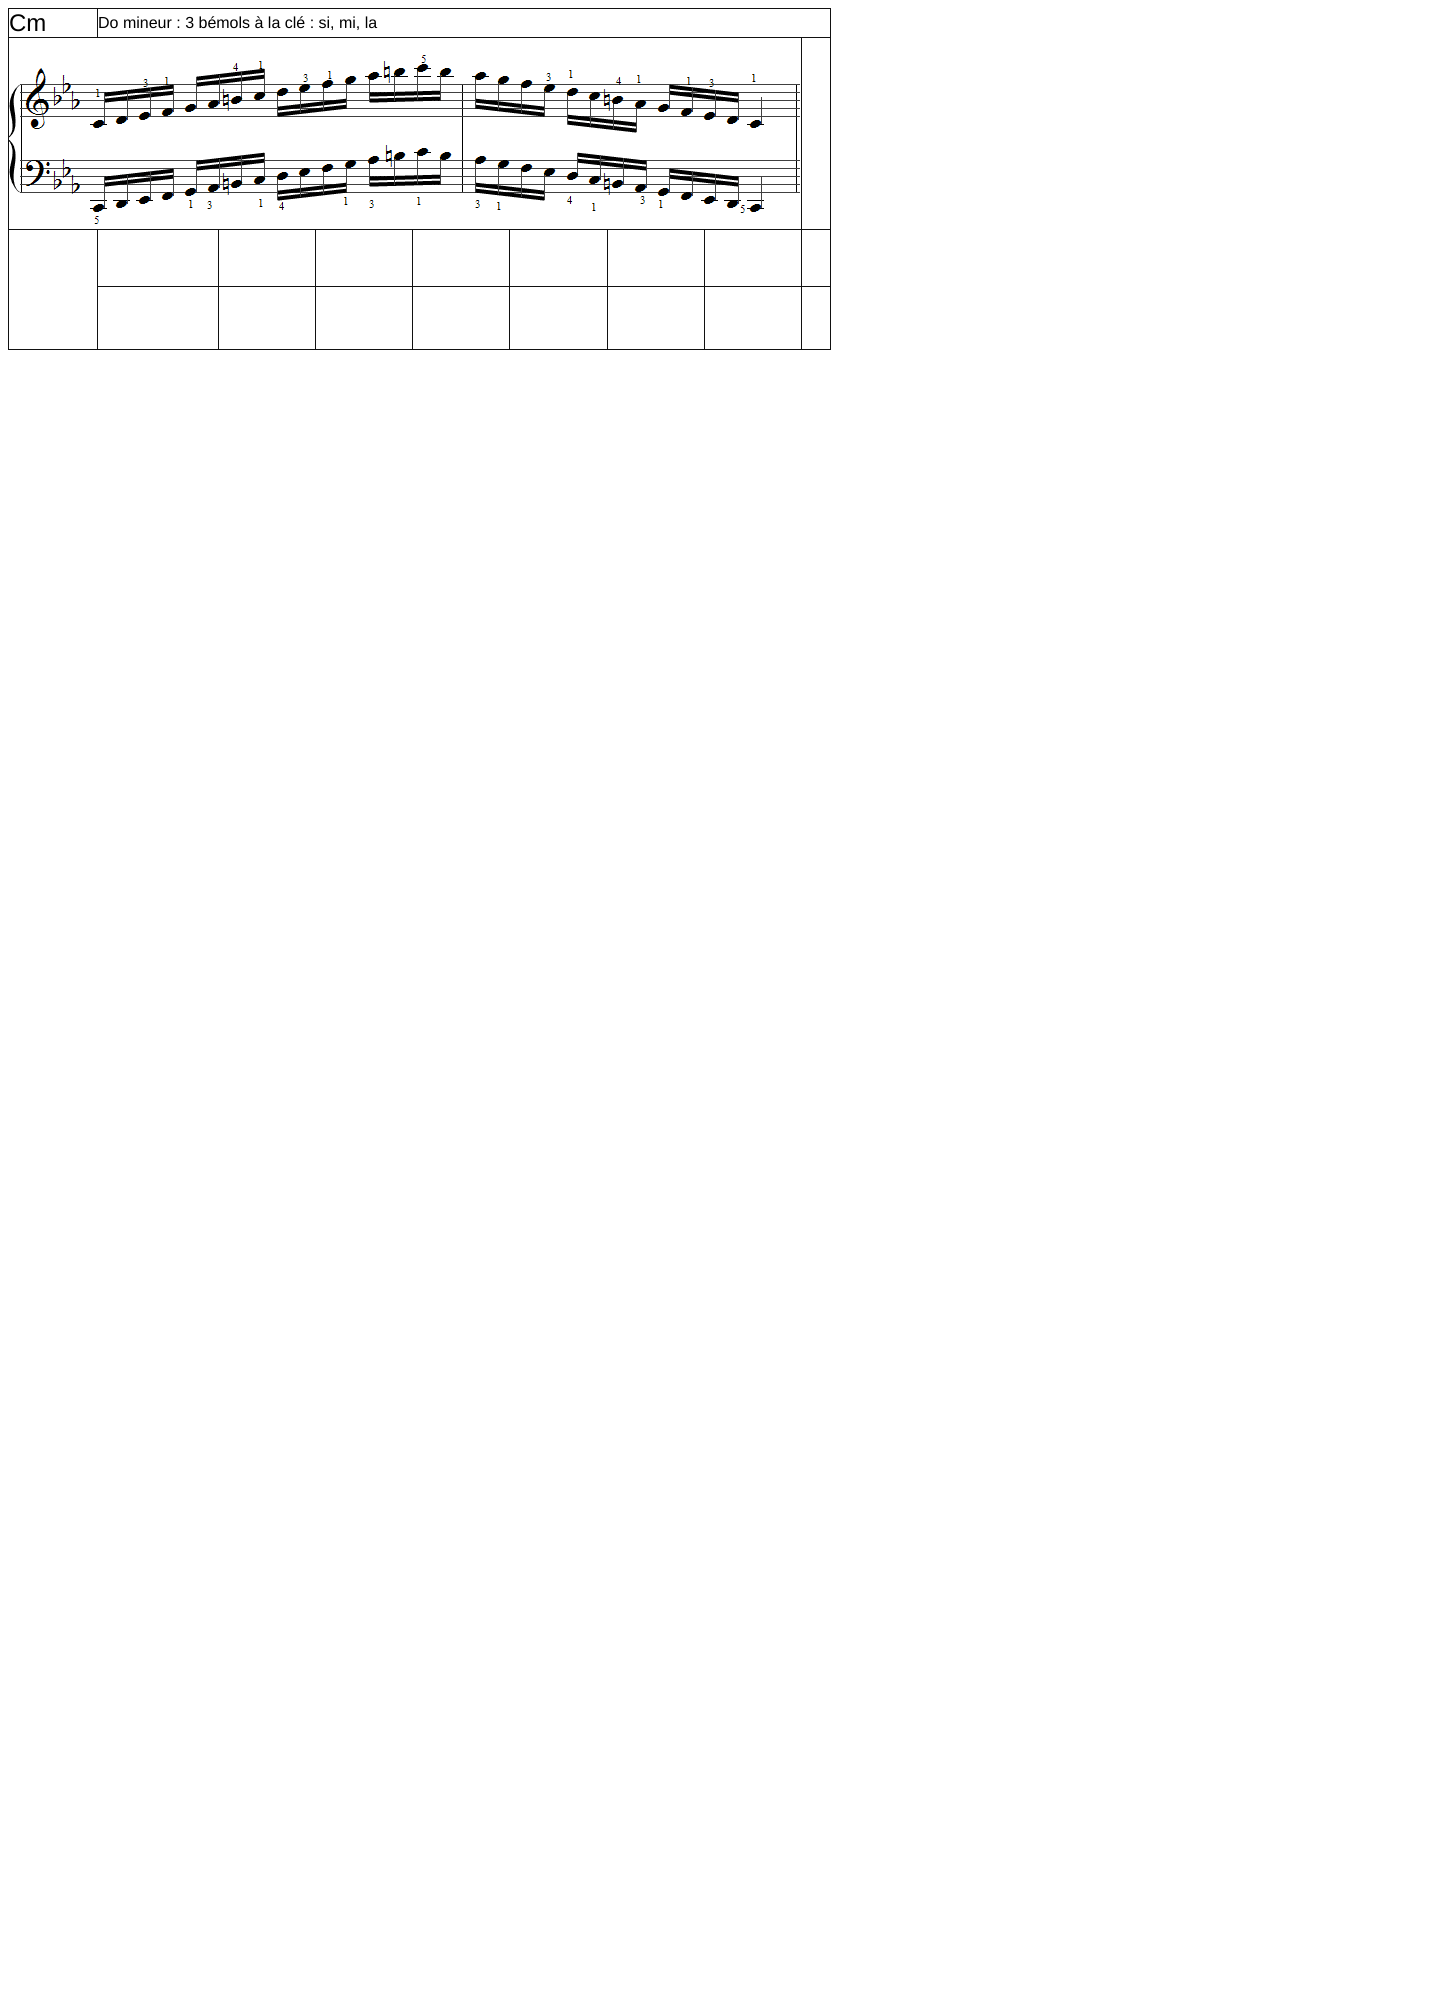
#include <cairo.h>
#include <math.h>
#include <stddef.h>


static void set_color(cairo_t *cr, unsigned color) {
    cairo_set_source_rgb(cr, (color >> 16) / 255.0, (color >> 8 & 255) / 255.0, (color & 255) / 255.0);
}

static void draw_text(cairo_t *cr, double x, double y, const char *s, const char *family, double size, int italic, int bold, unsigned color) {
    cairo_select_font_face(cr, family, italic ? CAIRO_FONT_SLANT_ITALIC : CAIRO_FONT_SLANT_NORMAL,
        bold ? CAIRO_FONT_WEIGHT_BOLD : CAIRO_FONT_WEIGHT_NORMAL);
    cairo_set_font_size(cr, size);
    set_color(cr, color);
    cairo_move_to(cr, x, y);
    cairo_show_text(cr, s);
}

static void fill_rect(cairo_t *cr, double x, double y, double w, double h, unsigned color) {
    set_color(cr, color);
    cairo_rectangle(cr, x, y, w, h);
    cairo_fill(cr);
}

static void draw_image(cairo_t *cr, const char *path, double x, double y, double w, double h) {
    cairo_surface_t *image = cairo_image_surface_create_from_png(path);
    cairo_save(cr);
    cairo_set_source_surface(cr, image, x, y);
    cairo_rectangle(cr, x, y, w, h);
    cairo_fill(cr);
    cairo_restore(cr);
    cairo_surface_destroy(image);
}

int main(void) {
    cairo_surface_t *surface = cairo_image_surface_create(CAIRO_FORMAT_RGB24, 1453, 2010);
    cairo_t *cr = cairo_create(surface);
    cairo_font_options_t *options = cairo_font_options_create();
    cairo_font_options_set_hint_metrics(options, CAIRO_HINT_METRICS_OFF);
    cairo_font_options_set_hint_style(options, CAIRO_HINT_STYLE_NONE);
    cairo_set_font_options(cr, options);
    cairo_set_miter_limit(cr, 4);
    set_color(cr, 0xFFFFFF);
    cairo_paint(cr);
    fill_rect(cr, 8, 8, 823, 1, 0x111111);
    fill_rect(cr, 830, 8, 1, 342, 0x111111);
    fill_rect(cr, 8, 349, 823, 1, 0x111111);
    fill_rect(cr, 8, 8, 1, 342, 0x111111);
    draw_text(cr, 9, 31, "Cm", "Liberation Sans", 24, 0, 0, 0x000000);
    fill_rect(cr, 801, 37, 30, 1, 0x111111);
    fill_rect(cr, 801, 229, 30, 1, 0x111111);
    fill_rect(cr, 801, 286, 30, 1, 0x111111);
    fill_rect(cr, 801, 286, 1, 64, 0x111111);
    fill_rect(cr, 704, 286, 98, 1, 0x111111);
    fill_rect(cr, 801, 229, 1, 58, 0x111111);
    fill_rect(cr, 704, 229, 98, 1, 0x111111);
    fill_rect(cr, 801, 37, 1, 193, 0x111111);
    fill_rect(cr, 8, 37, 794, 1, 0x111111);
    fill_rect(cr, 97, 8, 1, 30, 0x111111);
    draw_text(cr, 98, 28, "Do mineur : 3 bémols à la clé : si, mi, la", "Liberation Sans", 16, 0, 0, 0x000000);
    draw_image(cr, "assets/img1.png", 9, 55, 791, 169);
    fill_rect(cr, 704, 286, 1, 64, 0x111111);
    fill_rect(cr, 607, 286, 98, 1, 0x111111);
    fill_rect(cr, 704, 229, 1, 58, 0x111111);
    fill_rect(cr, 607, 229, 98, 1, 0x111111);
    fill_rect(cr, 607, 286, 1, 64, 0x111111);
    fill_rect(cr, 509, 286, 99, 1, 0x111111);
    fill_rect(cr, 607, 229, 1, 58, 0x111111);
    fill_rect(cr, 509, 229, 99, 1, 0x111111);
    fill_rect(cr, 509, 286, 1, 64, 0x111111);
    fill_rect(cr, 412, 286, 98, 1, 0x111111);
    fill_rect(cr, 509, 229, 1, 58, 0x111111);
    fill_rect(cr, 412, 229, 98, 1, 0x111111);
    fill_rect(cr, 412, 286, 1, 64, 0x111111);
    fill_rect(cr, 315, 286, 98, 1, 0x111111);
    fill_rect(cr, 412, 229, 1, 58, 0x111111);
    fill_rect(cr, 315, 229, 98, 1, 0x111111);
    fill_rect(cr, 315, 286, 1, 64, 0x111111);
    fill_rect(cr, 218, 286, 98, 1, 0x111111);
    fill_rect(cr, 315, 229, 1, 58, 0x111111);
    fill_rect(cr, 218, 229, 98, 1, 0x111111);
    fill_rect(cr, 218, 286, 1, 64, 0x111111);
    fill_rect(cr, 97, 286, 122, 1, 0x111111);
    fill_rect(cr, 218, 229, 1, 58, 0x111111);
    fill_rect(cr, 97, 229, 122, 1, 0x111111);
    fill_rect(cr, 97, 286, 1, 64, 0x111111);
    fill_rect(cr, 97, 229, 1, 58, 0x111111);
    fill_rect(cr, 8, 229, 90, 1, 0x111111);
    cairo_surface_write_to_png(surface, "output.png");
    cairo_font_options_destroy(options);
    cairo_destroy(cr);
    cairo_surface_destroy(surface);
    return 0;
}
